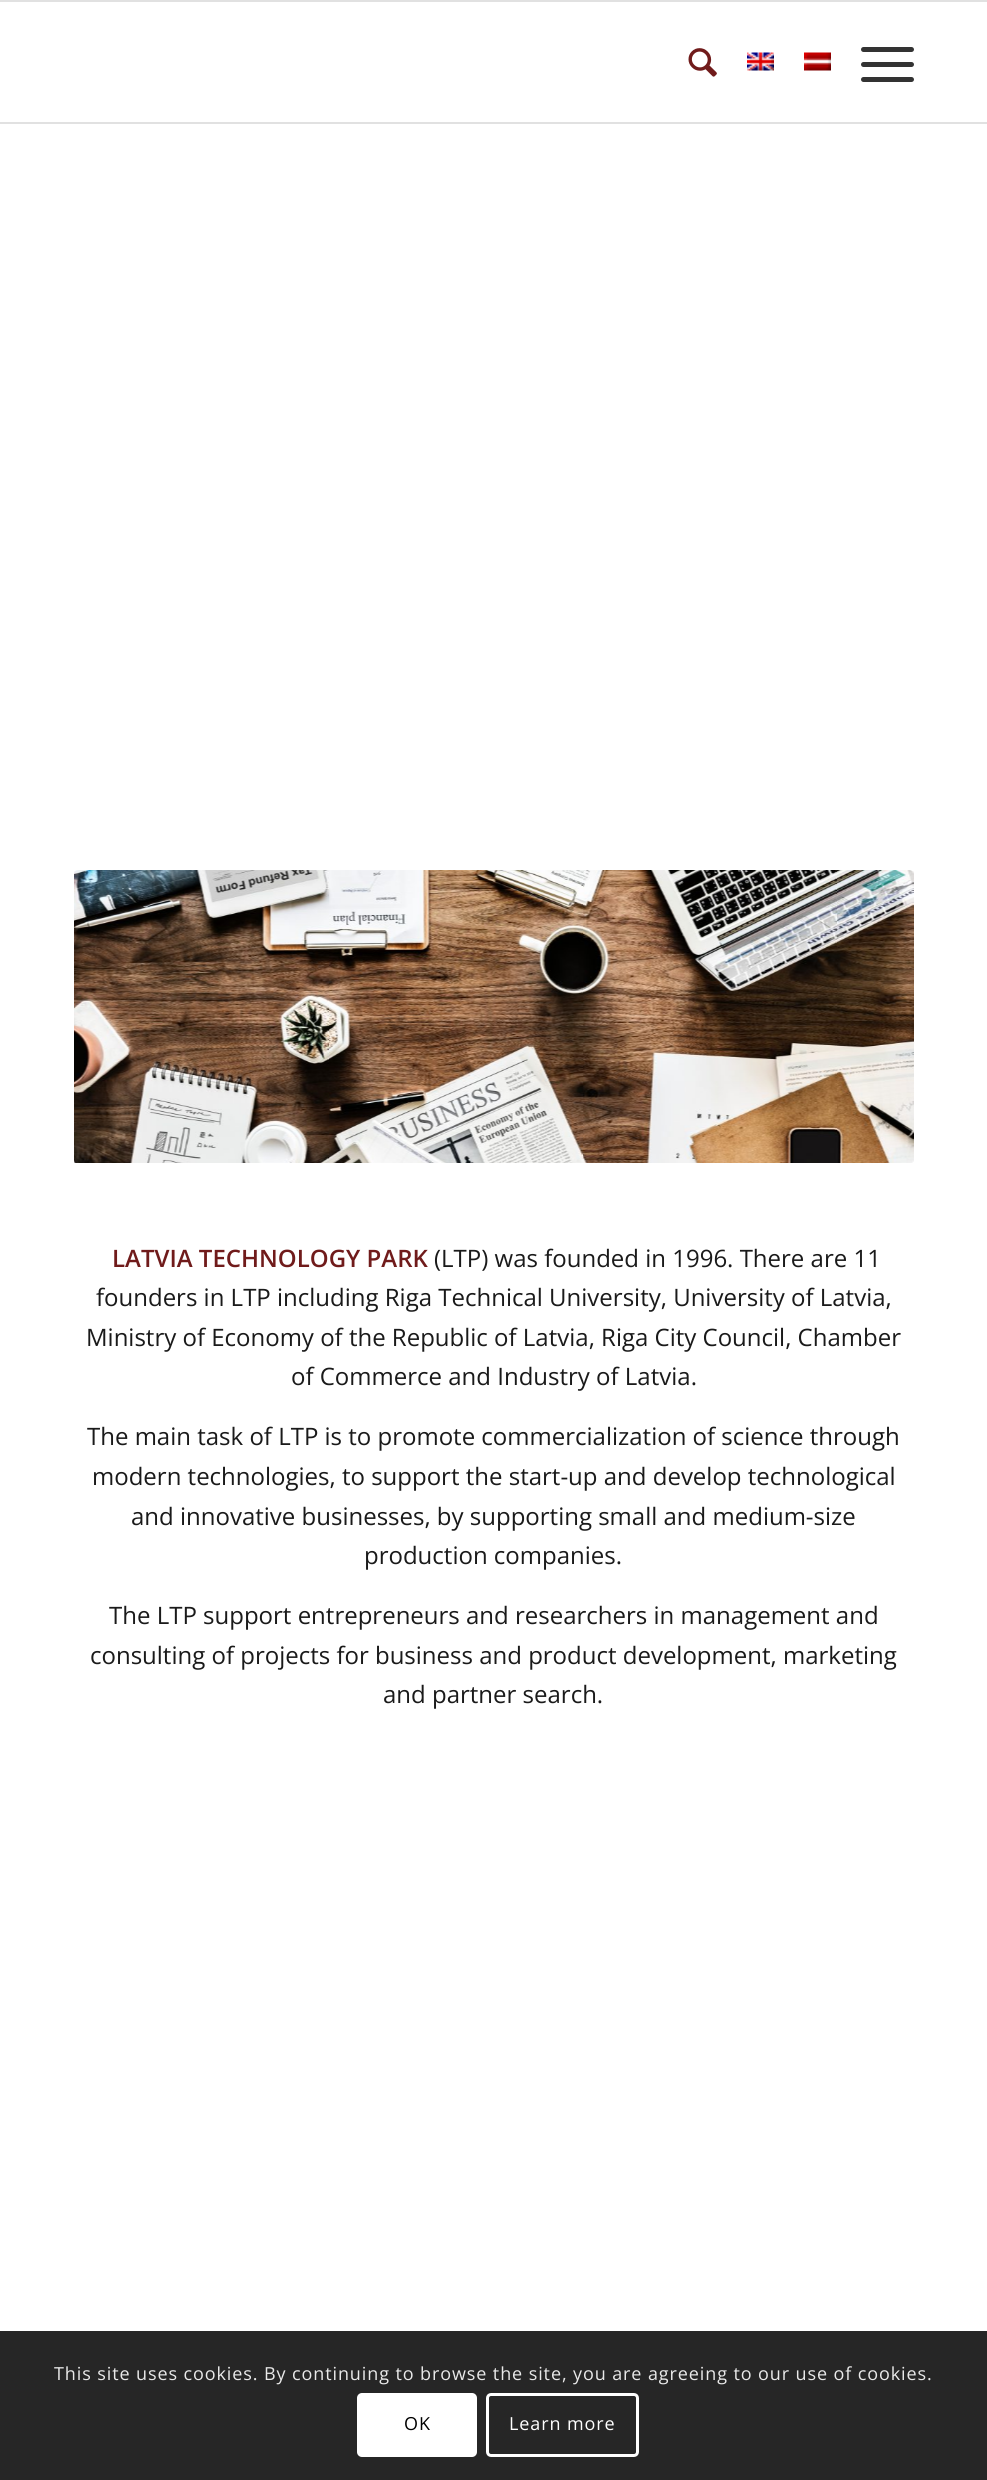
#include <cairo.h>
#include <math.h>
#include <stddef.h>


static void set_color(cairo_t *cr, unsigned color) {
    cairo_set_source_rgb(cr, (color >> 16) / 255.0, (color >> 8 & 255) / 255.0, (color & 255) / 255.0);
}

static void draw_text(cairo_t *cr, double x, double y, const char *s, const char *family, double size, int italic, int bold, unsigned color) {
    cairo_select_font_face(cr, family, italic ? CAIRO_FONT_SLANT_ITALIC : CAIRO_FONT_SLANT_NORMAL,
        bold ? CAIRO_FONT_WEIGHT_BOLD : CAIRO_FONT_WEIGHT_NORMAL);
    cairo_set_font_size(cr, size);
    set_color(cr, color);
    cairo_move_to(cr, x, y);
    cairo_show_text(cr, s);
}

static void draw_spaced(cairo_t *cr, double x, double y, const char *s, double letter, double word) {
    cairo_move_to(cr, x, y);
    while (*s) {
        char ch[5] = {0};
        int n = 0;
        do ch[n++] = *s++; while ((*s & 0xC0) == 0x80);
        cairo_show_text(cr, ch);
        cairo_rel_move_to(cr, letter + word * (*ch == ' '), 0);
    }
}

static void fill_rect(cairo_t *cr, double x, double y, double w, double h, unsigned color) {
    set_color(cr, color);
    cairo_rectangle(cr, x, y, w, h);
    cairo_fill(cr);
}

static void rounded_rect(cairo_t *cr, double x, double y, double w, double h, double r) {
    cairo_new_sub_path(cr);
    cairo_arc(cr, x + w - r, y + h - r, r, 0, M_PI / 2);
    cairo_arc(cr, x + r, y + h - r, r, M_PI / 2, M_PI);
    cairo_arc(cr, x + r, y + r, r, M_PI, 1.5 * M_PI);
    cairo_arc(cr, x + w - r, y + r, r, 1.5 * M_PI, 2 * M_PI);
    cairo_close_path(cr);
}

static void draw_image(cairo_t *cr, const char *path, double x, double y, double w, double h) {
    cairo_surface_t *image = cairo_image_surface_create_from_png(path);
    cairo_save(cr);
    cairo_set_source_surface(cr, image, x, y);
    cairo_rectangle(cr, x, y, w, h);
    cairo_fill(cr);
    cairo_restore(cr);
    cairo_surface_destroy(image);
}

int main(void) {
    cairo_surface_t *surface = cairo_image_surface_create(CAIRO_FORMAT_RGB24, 987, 2480);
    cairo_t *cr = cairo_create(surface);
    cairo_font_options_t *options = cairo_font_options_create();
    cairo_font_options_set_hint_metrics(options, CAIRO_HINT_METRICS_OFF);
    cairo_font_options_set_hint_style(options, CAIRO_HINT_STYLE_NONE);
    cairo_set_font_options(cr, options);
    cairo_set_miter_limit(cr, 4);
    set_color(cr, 0xFFFFFF);
    cairo_paint(cr);
    fill_rect(cr, 0, 0, 987, 2, 0xE1E1E1);
    fill_rect(cr, 0, 122, 987, 2, 0xE1E1E1);
    draw_image(cr, "assets/img1.png", 688, 48, 29, 29);
    draw_image(cr, "assets/img2.png", 747, 52, 27, 19);
    draw_image(cr, "assets/img3.png", 804, 52, 27, 19);
    set_color(cr, 0x333333);
    rounded_rect(cr, 861, 62, 53, 5, 2.5);
    cairo_fill(cr);
    rounded_rect(cr, 861, 47, 53, 5, 2.5);
    cairo_fill(cr);
    rounded_rect(cr, 861, 77, 53, 5, 2.5);
    cairo_fill(cr);
    draw_image(cr, "assets/img4.png", 74, 870, 840, 293);
    draw_text(cr, 112, 1267, "LATVIA TECHNOLOGY PARK", "Open Sans SemiBold", 24, 0, 0, 0x701B1B);
    draw_text(cr, 434, 1267, "(LTP) was founded in 1996. There are 11", "Open Sans", 24, 0, 0, 0x1A1A1A);
    draw_text(cr, 96, 1306, "founders in LTP including Riga Technical University, University of Latvia,", "Open Sans", 24, 0, 0, 0x1A1A1A);
    draw_text(cr, 86, 1346, "Ministry of Economy of the Republic of Latvia, Riga City Council, Chamber", "Open Sans", 24, 0, 0, 0x1A1A1A);
    draw_text(cr, 291, 1385, "of Commerce and Industry of Latvia.", "Open Sans", 24, 0, 0, 0x1A1A1A);
    draw_text(cr, 87, 1445, "The main task of LTP is to promote commercialization of science through", "Open Sans", 24, 0, 0, 0x1A1A1A);
    draw_text(cr, 92, 1485, "modern technologies, to support the start-up and develop technological", "Open Sans", 24, 0, 0, 0x1A1A1A);
    draw_text(cr, 131, 1525, "and innovative businesses, by supporting small and medium-size", "Open Sans", 24, 0, 0, 0x1A1A1A);
    draw_text(cr, 364, 1564, "production companies.", "Open Sans", 24, 0, 0, 0x1A1A1A);
    draw_text(cr, 109, 1624, "The LTP support entrepreneurs and researchers in management and", "Open Sans", 24, 0, 0, 0x1A1A1A);
    draw_text(cr, 90, 1664, "consulting of projects for business and product development, marketing", "Open Sans", 24, 0, 0, 0x1A1A1A);
    draw_text(cr, 383, 1703, "and partner search.", "Open Sans", 24, 0, 0, 0x1A1A1A);
    fill_rect(cr, 0, 2331, 987, 149, 0x262626);
    cairo_set_font_size(cr, 18);
    set_color(cr, 0xE9E9E9);
    draw_spaced(cr, 54, 2380, "This site uses cookies. By continuing to browse the site, you are agreeing to our use of cookies.", 0.9, 0);
    set_color(cr, 0xFFFFFF);
    rounded_rect(cr, 357, 2393, 120, 64, 5);
    cairo_fill(cr);
    set_color(cr, 0x000000);
    draw_spaced(cr, 404, 2430, "OK", 0.9, 0);
    rounded_rect(cr, 487.5, 2394.5, 150, 61, 3.5);
    set_color(cr, 0xFFFFFF);
    cairo_set_line_width(cr, 3);
    cairo_stroke(cr);
    draw_spaced(cr, 509, 2430, "Learn more", 0.9, 0);
    cairo_surface_write_to_png(surface, "output.png");
    cairo_font_options_destroy(options);
    cairo_destroy(cr);
    cairo_surface_destroy(surface);
    return 0;
}
